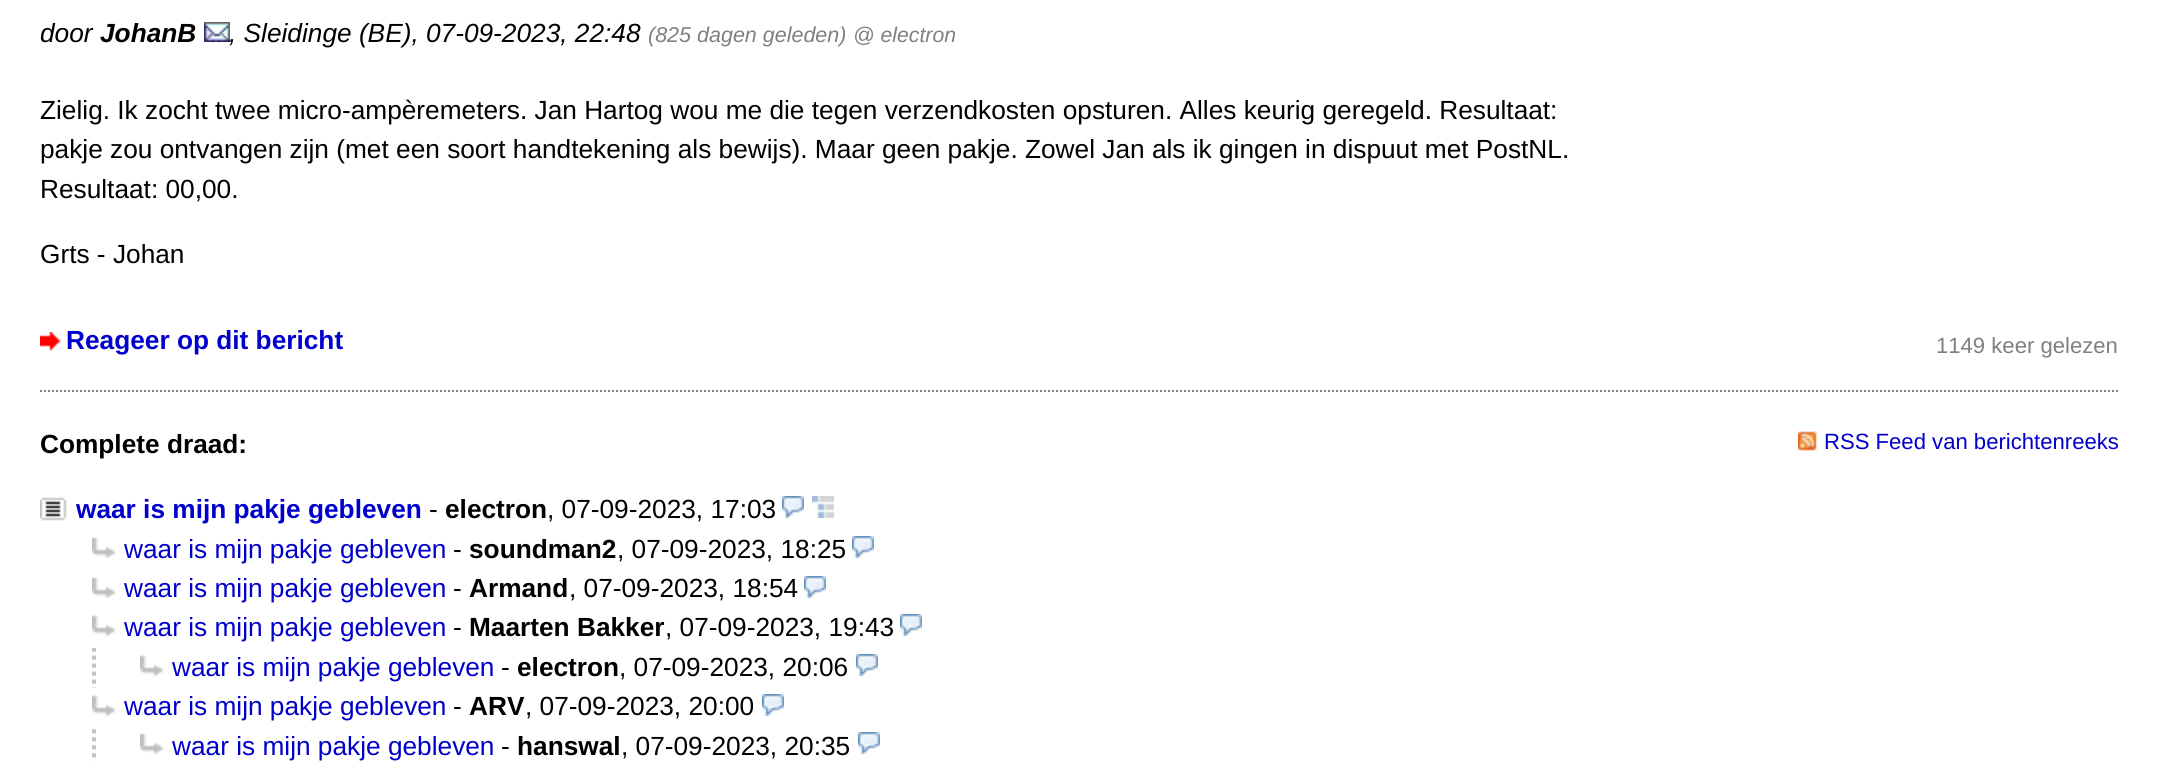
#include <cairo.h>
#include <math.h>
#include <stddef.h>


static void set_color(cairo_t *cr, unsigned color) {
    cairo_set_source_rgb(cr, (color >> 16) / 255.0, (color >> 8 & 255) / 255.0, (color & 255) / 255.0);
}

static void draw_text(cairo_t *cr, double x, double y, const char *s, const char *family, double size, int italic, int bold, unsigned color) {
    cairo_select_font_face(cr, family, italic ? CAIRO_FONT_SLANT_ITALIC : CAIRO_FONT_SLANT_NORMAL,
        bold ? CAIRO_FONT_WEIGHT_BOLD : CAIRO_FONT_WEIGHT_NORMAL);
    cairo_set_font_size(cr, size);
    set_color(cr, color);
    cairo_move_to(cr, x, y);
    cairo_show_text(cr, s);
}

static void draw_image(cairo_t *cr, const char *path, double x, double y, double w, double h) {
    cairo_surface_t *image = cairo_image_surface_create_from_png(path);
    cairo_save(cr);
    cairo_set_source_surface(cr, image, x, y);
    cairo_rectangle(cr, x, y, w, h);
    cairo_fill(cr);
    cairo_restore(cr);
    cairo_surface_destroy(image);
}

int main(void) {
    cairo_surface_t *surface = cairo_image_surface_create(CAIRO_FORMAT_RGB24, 2157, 761);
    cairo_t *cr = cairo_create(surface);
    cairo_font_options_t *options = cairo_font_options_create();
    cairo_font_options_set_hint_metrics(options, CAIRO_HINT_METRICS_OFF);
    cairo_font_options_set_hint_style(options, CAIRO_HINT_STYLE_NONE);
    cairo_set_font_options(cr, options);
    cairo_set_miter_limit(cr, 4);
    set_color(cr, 0xFFFFFF);
    cairo_paint(cr);
    draw_text(cr, 40, 42, "door", "Liberation Sans", 26.25, 1, 0, 0x000000);
    draw_text(cr, 100, 42, "JohanB", "Liberation Sans", 26.25, 1, 1, 0x000000);
    draw_image(cr, "assets/img1.png", 204, 22, 26, 20);
    draw_text(cr, 229, 42, ", Sleidinge (BE), 07-09-2023, 22:48", "Liberation Sans", 26.25, 1, 0, 0x000000);
    draw_text(cr, 648, 42, "(825 dagen geleden)", "Liberation Sans", 21.5, 1, 0, 0x808080);
    draw_text(cr, 853, 42, "@ electron", "Liberation Sans", 21.25, 1, 0, 0x808080);
    draw_text(cr, 40, 119, "Zielig. Ik zocht twee micro-ampèremeters. Jan Hartog wou me die tegen verzendkosten opsturen. Alles keurig geregeld. Resultaat:", "Liberation Sans", 26.25, 0, 0, 0x000000);
    draw_text(cr, 40, 158, "pakje zou ontvangen zijn (met een soort handtekening als bewijs). Maar geen pakje. Zowel Jan als ik gingen in dispuut met PostNL.", "Liberation Sans", 26.25, 0, 0, 0x000000);
    draw_text(cr, 40, 198, "Resultaat: 00,00.", "Liberation Sans", 26.25, 0, 0, 0x000000);
    draw_text(cr, 40, 263, "Grts - Johan", "Liberation Sans", 26.25, 0, 0, 0x000000);
    draw_image(cr, "assets/img2.png", 40, 332, 21, 19);
    draw_text(cr, 66, 349, "Reageer op dit bericht", "Liberation Sans", 26.25, 0, 1, 0x0000CC);
    draw_text(cr, 1936, 353, "1149 keer gelezen", "Liberation Sans", 22.1, 0, 0, 0x808080);
    cairo_new_path(cr);
    cairo_move_to(cr, 40, 391);
    cairo_line_to(cr, 2118, 391);
    cairo_set_dash(cr, (double[]){2, 2}, 2, 0);
    cairo_stroke(cr);
    draw_text(cr, 40, 453, "Complete draad:", "Liberation Sans", 26.25, 0, 1, 0x000000);
    draw_image(cr, "assets/img3.png", 1798, 431, 19, 20);
    draw_text(cr, 1824, 449, "RSS Feed van berichtenreeks", "Liberation Sans", 22.1, 0, 0, 0x0000CC);
    draw_image(cr, "assets/img4.png", 40, 497, 27, 24);
    draw_text(cr, 76, 518, "waar is mijn pakje gebleven", "Liberation Sans", 26.25, 0, 1, 0x0000CC);
    draw_text(cr, 429, 518, "-", "Liberation Sans", 26.25, 0, 0, 0x000000);
    draw_text(cr, 445, 518, "electron", "Liberation Sans", 26.25, 0, 1, 0x000000);
    draw_text(cr, 547, 518, ", 07-09-2023, 17:03", "Liberation Sans", 26.25, 0, 0, 0x000000);
    draw_image(cr, "assets/img5.png", 782, 496, 22, 22);
    draw_image(cr, "assets/img6.png", 812, 496, 22, 22);
    draw_image(cr, "assets/img7.png", 92, 537, 25, 22);
    draw_text(cr, 124, 558, "waar is mijn pakje gebleven", "Liberation Sans", 26.25, 0, 0, 0x0000CC);
    draw_text(cr, 453, 558, "-", "Liberation Sans", 26.25, 0, 0, 0x000000);
    draw_text(cr, 469, 558, "soundman2", "Liberation Sans", 26.25, 0, 1, 0x000000);
    draw_text(cr, 617, 558, ", 07-09-2023, 18:25", "Liberation Sans", 26.25, 0, 0, 0x000000);
    draw_image(cr, "assets/img5.png", 852, 536, 22, 22);
    draw_image(cr, "assets/img7.png", 92, 577, 25, 22);
    draw_text(cr, 124, 597, "waar is mijn pakje gebleven", "Liberation Sans", 26.25, 0, 0, 0x0000CC);
    draw_text(cr, 453, 597, "-", "Liberation Sans", 26.25, 0, 0, 0x000000);
    draw_text(cr, 469, 597, "Armand", "Liberation Sans", 26.25, 0, 1, 0x000000);
    draw_text(cr, 569, 597, ", 07-09-2023, 18:54", "Liberation Sans", 26.25, 0, 0, 0x000000);
    draw_image(cr, "assets/img5.png", 804, 576, 22, 22);
    draw_image(cr, "assets/img7.png", 92, 615, 25, 22);
    draw_text(cr, 124, 636, "waar is mijn pakje gebleven", "Liberation Sans", 26.25, 0, 0, 0x0000CC);
    draw_text(cr, 453, 636, "-", "Liberation Sans", 26.25, 0, 0, 0x000000);
    draw_text(cr, 469, 636, "Maarten Bakker", "Liberation Sans", 26.25, 0, 1, 0x000000);
    draw_text(cr, 665, 636, ", 07-09-2023, 19:43", "Liberation Sans", 26.25, 0, 0, 0x000000);
    draw_image(cr, "assets/img5.png", 900, 614, 22, 22);
    draw_image(cr, "assets/img8.png", 92, 648, 4, 40);
    draw_image(cr, "assets/img7.png", 140, 655, 25, 22);
    draw_text(cr, 172, 676, "waar is mijn pakje gebleven", "Liberation Sans", 26.25, 0, 0, 0x0000CC);
    draw_text(cr, 501, 676, "-", "Liberation Sans", 26.25, 0, 0, 0x000000);
    draw_text(cr, 517, 676, "electron", "Liberation Sans", 26.25, 0, 1, 0x000000);
    draw_text(cr, 619, 676, ", 07-09-2023, 20:06", "Liberation Sans", 26.25, 0, 0, 0x000000);
    draw_image(cr, "assets/img5.png", 856, 654, 22, 22);
    draw_image(cr, "assets/img7.png", 92, 695, 25, 22);
    draw_text(cr, 124, 715, "waar is mijn pakje gebleven", "Liberation Sans", 26.25, 0, 0, 0x0000CC);
    draw_text(cr, 453, 715, "-", "Liberation Sans", 26.25, 0, 0, 0x000000);
    draw_text(cr, 469, 715, "ARV", "Liberation Sans", 26.25, 0, 1, 0x000000);
    draw_text(cr, 525, 715, ", 07-09-2023, 20:00", "Liberation Sans", 26.25, 0, 0, 0x000000);
    draw_image(cr, "assets/img5.png", 762, 694, 22, 22);
    draw_image(cr, "assets/img9.png", 92, 728, 4, 33);
    draw_image(cr, "assets/img7.png", 140, 733, 25, 22);
    draw_text(cr, 172, 755, "waar is mijn pakje gebleven", "Liberation Sans", 26.25, 0, 0, 0x0000CC);
    draw_text(cr, 501, 755, "-", "Liberation Sans", 26.25, 0, 0, 0x000000);
    draw_text(cr, 517, 755, "hanswal", "Liberation Sans", 26.25, 0, 1, 0x000000);
    draw_text(cr, 621, 755, ", 07-09-2023, 20:35", "Liberation Sans", 26.25, 0, 0, 0x000000);
    draw_image(cr, "assets/img5.png", 858, 732, 22, 22);
    cairo_surface_write_to_png(surface, "output.png");
    cairo_font_options_destroy(options);
    cairo_destroy(cr);
    cairo_surface_destroy(surface);
    return 0;
}
